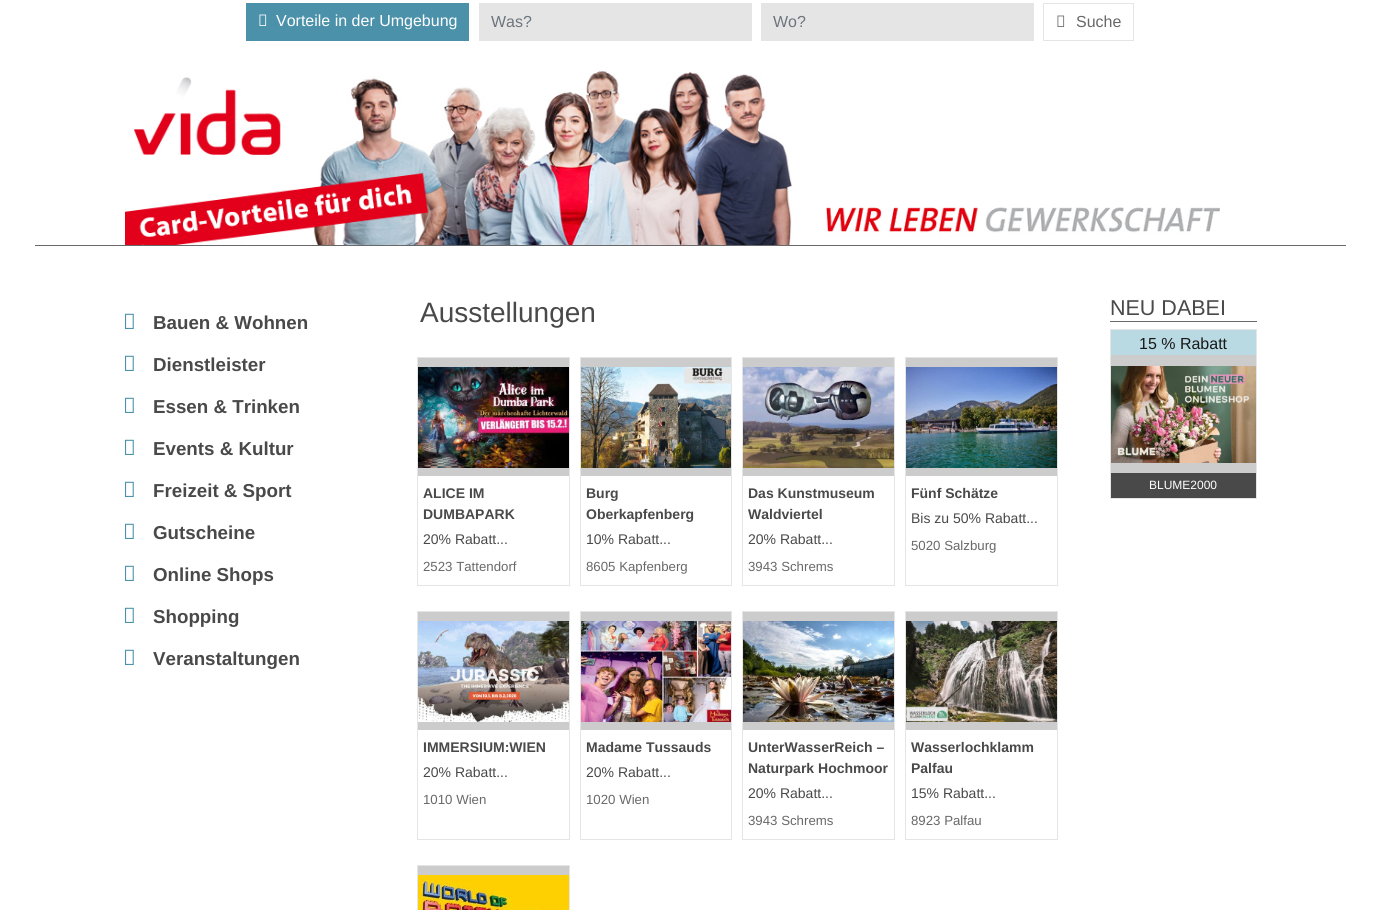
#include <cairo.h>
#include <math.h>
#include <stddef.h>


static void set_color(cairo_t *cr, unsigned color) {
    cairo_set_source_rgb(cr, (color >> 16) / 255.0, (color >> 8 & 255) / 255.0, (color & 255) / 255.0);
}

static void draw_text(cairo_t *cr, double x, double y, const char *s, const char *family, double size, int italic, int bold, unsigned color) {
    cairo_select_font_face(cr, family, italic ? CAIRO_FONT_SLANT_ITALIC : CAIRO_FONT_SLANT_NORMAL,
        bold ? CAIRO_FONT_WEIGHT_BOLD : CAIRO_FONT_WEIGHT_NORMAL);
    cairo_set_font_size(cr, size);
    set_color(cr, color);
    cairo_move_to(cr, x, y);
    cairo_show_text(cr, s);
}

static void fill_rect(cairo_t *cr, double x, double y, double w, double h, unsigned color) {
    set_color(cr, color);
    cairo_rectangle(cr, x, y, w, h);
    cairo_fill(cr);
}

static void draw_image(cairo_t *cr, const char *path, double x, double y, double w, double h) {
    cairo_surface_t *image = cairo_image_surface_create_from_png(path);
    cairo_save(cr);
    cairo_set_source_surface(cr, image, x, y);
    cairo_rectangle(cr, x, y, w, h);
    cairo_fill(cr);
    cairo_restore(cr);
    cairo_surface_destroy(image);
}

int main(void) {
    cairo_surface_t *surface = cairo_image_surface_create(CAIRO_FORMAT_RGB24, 1380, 910);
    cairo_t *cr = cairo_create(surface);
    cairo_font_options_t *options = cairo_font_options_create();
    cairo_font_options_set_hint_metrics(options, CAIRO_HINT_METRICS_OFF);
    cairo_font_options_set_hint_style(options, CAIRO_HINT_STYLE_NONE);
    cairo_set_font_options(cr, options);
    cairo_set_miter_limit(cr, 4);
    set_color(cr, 0xFFFFFF);
    cairo_paint(cr);
    fill_rect(cr, 246, 3, 223, 38, 0x4B91AA);
    draw_image(cr, "assets/img1.png", 259, 14, 8, 12);
    draw_text(cr, 276, 26, "Vorteile in der Umgebung", "Liberation Sans", 16, 0, 0, 0xFFFFFF);
    fill_rect(cr, 479, 3, 273, 38, 0xE5E5E5);
    draw_text(cr, 491, 27, "Was?", "Liberation Sans", 16, 0, 0, 0x6C757D);
    fill_rect(cr, 761, 3, 273, 38, 0xE5E5E5);
    draw_text(cr, 773, 27, "Wo?", "Liberation Sans", 16, 0, 0, 0x6C757D);
    cairo_rectangle(cr, 1043.5, 3.5, 90, 37);
    set_color(cr, 0xE5E5E5);
    cairo_set_line_width(cr, 1);
    cairo_stroke(cr);
    draw_image(cr, "assets/img2.png", 1057, 15, 8, 12);
    draw_text(cr, 1076, 27, "Suche", "Liberation Sans", 16, 0, 0, 0x686868);
    draw_image(cr, "assets/img3.png", 125, 71, 1095, 174);
    fill_rect(cr, 35, 245, 1311, 1, 0x686868);
    draw_image(cr, "assets/img4.png", 125, 313, 9, 16);
    draw_text(cr, 153, 329, "Bauen & Wohnen", "Liberation Sans", 18.75, 0, 1, 0x494949);
    draw_image(cr, "assets/img4.png", 125, 355, 9, 16);
    draw_text(cr, 153, 371, "Dienstleister", "Liberation Sans", 18.75, 0, 1, 0x494949);
    draw_image(cr, "assets/img4.png", 125, 397, 9, 16);
    draw_text(cr, 153, 413, "Essen & Trinken", "Liberation Sans", 18.75, 0, 1, 0x494949);
    draw_image(cr, "assets/img4.png", 125, 439, 9, 16);
    draw_text(cr, 153, 455, "Events & Kultur", "Liberation Sans", 18.75, 0, 1, 0x494949);
    draw_image(cr, "assets/img4.png", 125, 481, 9, 16);
    draw_text(cr, 153, 497, "Freizeit & Sport", "Liberation Sans", 18.75, 0, 1, 0x494949);
    draw_image(cr, "assets/img4.png", 125, 523, 9, 16);
    draw_text(cr, 153, 539, "Gutscheine", "Liberation Sans", 18.75, 0, 1, 0x494949);
    draw_image(cr, "assets/img4.png", 125, 565, 9, 16);
    draw_text(cr, 153, 581, "Online Shops", "Liberation Sans", 18.75, 0, 1, 0x494949);
    draw_image(cr, "assets/img4.png", 125, 607, 9, 16);
    draw_text(cr, 153, 623, "Shopping", "Liberation Sans", 18.75, 0, 1, 0x494949);
    draw_image(cr, "assets/img4.png", 125, 649, 9, 16);
    draw_text(cr, 153, 665, "Veranstaltungen", "Liberation Sans", 18.75, 0, 1, 0x494949);
    draw_text(cr, 420, 322, "Ausstellungen", "Liberation Sans", 28, 0, 0, 0x494949);
    cairo_rectangle(cr, 417.5, 357.5, 152, 228);
    set_color(cr, 0xE5E5E5);
    cairo_stroke(cr);
    fill_rect(cr, 418, 358, 151, 118, 0xCCCCCC);
    draw_image(cr, "assets/img5.png", 418, 367, 151, 101);
    draw_text(cr, 423, 498, "ALICE IM", "Liberation Sans", 14, 0, 1, 0x494949);
    draw_text(cr, 423, 519, "DUMBAPARK", "Liberation Sans", 14, 0, 1, 0x494949);
    draw_text(cr, 423, 544, "20% Rabatt...", "Liberation Sans", 14, 0, 0, 0x494949);
    draw_text(cr, 423, 571, "2523 Tattendorf", "Liberation Sans", 13.25, 0, 0, 0x686868);
    cairo_rectangle(cr, 580.5, 357.5, 151, 228);
    set_color(cr, 0xE5E5E5);
    cairo_stroke(cr);
    fill_rect(cr, 581, 358, 150, 118, 0xCCCCCC);
    draw_image(cr, "assets/img6.png", 581, 367, 150, 101);
    draw_text(cr, 586, 498, "Burg", "Liberation Sans", 14, 0, 1, 0x494949);
    draw_text(cr, 586, 519, "Oberkapfenberg", "Liberation Sans", 14, 0, 1, 0x494949);
    draw_text(cr, 586, 544, "10% Rabatt...", "Liberation Sans", 14, 0, 0, 0x494949);
    draw_text(cr, 586, 571, "8605 Kapfenberg", "Liberation Sans", 13.25, 0, 0, 0x686868);
    cairo_rectangle(cr, 742.5, 357.5, 152, 228);
    set_color(cr, 0xE5E5E5);
    cairo_stroke(cr);
    fill_rect(cr, 743, 358, 151, 118, 0xCCCCCC);
    draw_image(cr, "assets/img7.png", 743, 367, 151, 101);
    draw_text(cr, 748, 498, "Das Kunstmuseum", "Liberation Sans", 14, 0, 1, 0x494949);
    draw_text(cr, 748, 519, "Waldviertel", "Liberation Sans", 14, 0, 1, 0x494949);
    draw_text(cr, 748, 544, "20% Rabatt...", "Liberation Sans", 14, 0, 0, 0x494949);
    draw_text(cr, 748, 571, "3943 Schrems", "Liberation Sans", 13.25, 0, 0, 0x686868);
    cairo_rectangle(cr, 905.5, 357.5, 152, 228);
    set_color(cr, 0xE5E5E5);
    cairo_stroke(cr);
    fill_rect(cr, 906, 358, 151, 118, 0xCCCCCC);
    draw_image(cr, "assets/img8.png", 906, 367, 151, 101);
    draw_text(cr, 911, 498, "Fünf Schätze", "Liberation Sans", 14, 0, 1, 0x494949);
    draw_text(cr, 911, 523, "Bis zu 50% Rabatt...", "Liberation Sans", 14, 0, 0, 0x494949);
    draw_text(cr, 911, 550, "5020 Salzburg", "Liberation Sans", 13.25, 0, 0, 0x686868);
    cairo_rectangle(cr, 417.5, 611.5, 152, 228);
    set_color(cr, 0xE5E5E5);
    cairo_stroke(cr);
    fill_rect(cr, 418, 612, 151, 118, 0xCCCCCC);
    draw_image(cr, "assets/img9.png", 418, 621, 151, 101);
    draw_text(cr, 423, 752, "IMMERSIUM:WIEN", "Liberation Sans", 14, 0, 1, 0x494949);
    draw_text(cr, 423, 777, "20% Rabatt...", "Liberation Sans", 14, 0, 0, 0x494949);
    draw_text(cr, 423, 804, "1010 Wien", "Liberation Sans", 13.25, 0, 0, 0x686868);
    cairo_rectangle(cr, 580.5, 611.5, 151, 228);
    set_color(cr, 0xE5E5E5);
    cairo_stroke(cr);
    fill_rect(cr, 581, 612, 150, 118, 0xCCCCCC);
    draw_image(cr, "assets/img10.png", 581, 621, 150, 101);
    draw_text(cr, 586, 752, "Madame Tussauds", "Liberation Sans", 14, 0, 1, 0x494949);
    draw_text(cr, 586, 777, "20% Rabatt...", "Liberation Sans", 14, 0, 0, 0x494949);
    draw_text(cr, 586, 804, "1020 Wien", "Liberation Sans", 13.25, 0, 0, 0x686868);
    cairo_rectangle(cr, 742.5, 611.5, 152, 228);
    set_color(cr, 0xE5E5E5);
    cairo_stroke(cr);
    fill_rect(cr, 743, 612, 151, 118, 0xCCCCCC);
    draw_image(cr, "assets/img11.png", 743, 621, 151, 101);
    draw_text(cr, 748, 752, "UnterWasserReich –", "Liberation Sans", 14, 0, 1, 0x494949);
    draw_text(cr, 748, 773, "Naturpark Hochmoor", "Liberation Sans", 14, 0, 1, 0x494949);
    draw_text(cr, 748, 798, "20% Rabatt...", "Liberation Sans", 14, 0, 0, 0x494949);
    draw_text(cr, 748, 825, "3943 Schrems", "Liberation Sans", 13.25, 0, 0, 0x686868);
    cairo_rectangle(cr, 905.5, 611.5, 152, 228);
    set_color(cr, 0xE5E5E5);
    cairo_stroke(cr);
    fill_rect(cr, 906, 612, 151, 118, 0xCCCCCC);
    draw_image(cr, "assets/img12.png", 906, 621, 151, 101);
    draw_text(cr, 911, 752, "Wasserlochklamm", "Liberation Sans", 14, 0, 1, 0x494949);
    draw_text(cr, 911, 773, "Palfau", "Liberation Sans", 14, 0, 1, 0x494949);
    draw_text(cr, 911, 798, "15% Rabatt...", "Liberation Sans", 14, 0, 0, 0x494949);
    draw_text(cr, 911, 825, "8923 Palfau", "Liberation Sans", 13.25, 0, 0, 0x686868);
    cairo_rectangle(cr, 417.5, 865.5, 152, 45);
    set_color(cr, 0xE5E5E5);
    cairo_stroke(cr);
    fill_rect(cr, 418, 866, 151, 9, 0xCCCCCC);
    draw_image(cr, "assets/img13.png", 418, 875, 151, 35);
    fill_rect(cr, 1110, 321, 147, 1, 0x686868);
    draw_text(cr, 1110, 315, "NEU DABEI", "Liberation Sans", 21.5, 0, 0, 0x494949);
    cairo_rectangle(cr, 1110.5, 329.5, 146, 169);
    set_color(cr, 0xE5E5E5);
    cairo_stroke(cr);
    fill_rect(cr, 1111, 330, 145, 25, 0xBADAE3);
    draw_text(cr, 1139, 349, "15 % Rabatt", "Liberation Sans", 16, 0, 0, 0x191919);
    fill_rect(cr, 1111, 355, 145, 118, 0xCCCCCC);
    draw_image(cr, "assets/img14.png", 1111, 366, 145, 97);
    fill_rect(cr, 1111, 473, 145, 25, 0x494949);
    draw_text(cr, 1149, 489, "BLUME2000", "Liberation Sans", 12, 0, 0, 0xFFFFFF);
    cairo_surface_write_to_png(surface, "output.png");
    cairo_font_options_destroy(options);
    cairo_destroy(cr);
    cairo_surface_destroy(surface);
    return 0;
}
